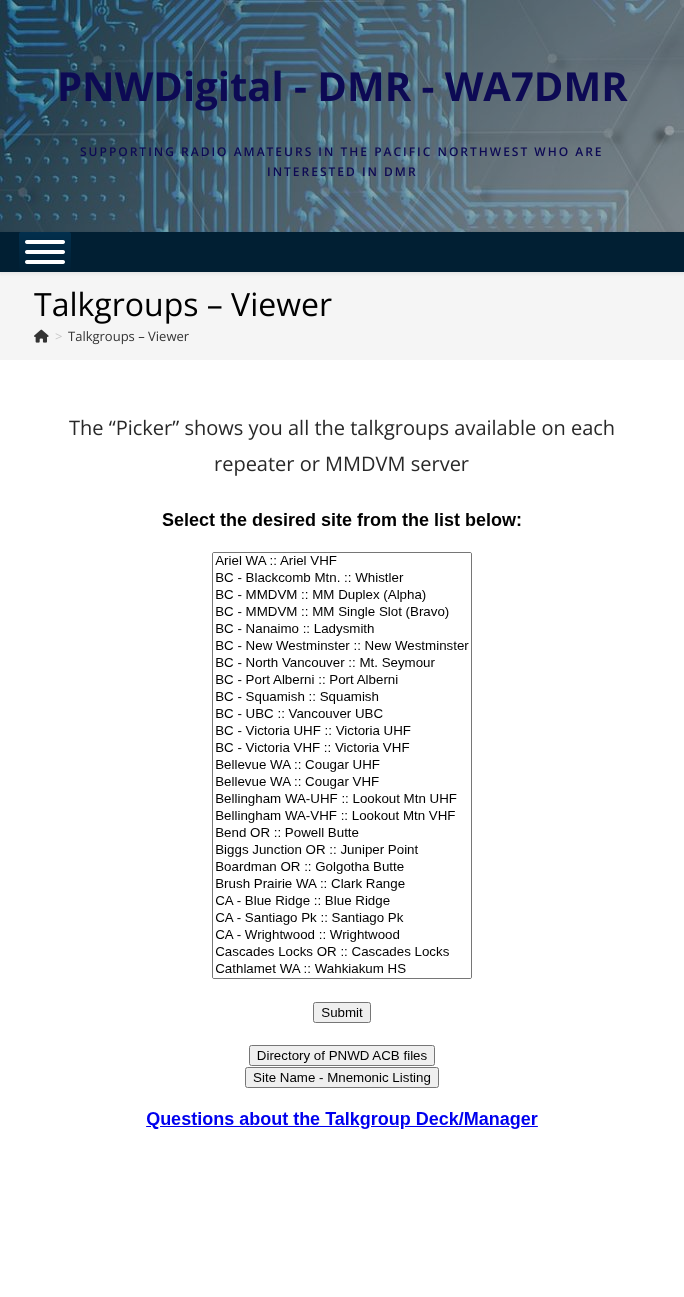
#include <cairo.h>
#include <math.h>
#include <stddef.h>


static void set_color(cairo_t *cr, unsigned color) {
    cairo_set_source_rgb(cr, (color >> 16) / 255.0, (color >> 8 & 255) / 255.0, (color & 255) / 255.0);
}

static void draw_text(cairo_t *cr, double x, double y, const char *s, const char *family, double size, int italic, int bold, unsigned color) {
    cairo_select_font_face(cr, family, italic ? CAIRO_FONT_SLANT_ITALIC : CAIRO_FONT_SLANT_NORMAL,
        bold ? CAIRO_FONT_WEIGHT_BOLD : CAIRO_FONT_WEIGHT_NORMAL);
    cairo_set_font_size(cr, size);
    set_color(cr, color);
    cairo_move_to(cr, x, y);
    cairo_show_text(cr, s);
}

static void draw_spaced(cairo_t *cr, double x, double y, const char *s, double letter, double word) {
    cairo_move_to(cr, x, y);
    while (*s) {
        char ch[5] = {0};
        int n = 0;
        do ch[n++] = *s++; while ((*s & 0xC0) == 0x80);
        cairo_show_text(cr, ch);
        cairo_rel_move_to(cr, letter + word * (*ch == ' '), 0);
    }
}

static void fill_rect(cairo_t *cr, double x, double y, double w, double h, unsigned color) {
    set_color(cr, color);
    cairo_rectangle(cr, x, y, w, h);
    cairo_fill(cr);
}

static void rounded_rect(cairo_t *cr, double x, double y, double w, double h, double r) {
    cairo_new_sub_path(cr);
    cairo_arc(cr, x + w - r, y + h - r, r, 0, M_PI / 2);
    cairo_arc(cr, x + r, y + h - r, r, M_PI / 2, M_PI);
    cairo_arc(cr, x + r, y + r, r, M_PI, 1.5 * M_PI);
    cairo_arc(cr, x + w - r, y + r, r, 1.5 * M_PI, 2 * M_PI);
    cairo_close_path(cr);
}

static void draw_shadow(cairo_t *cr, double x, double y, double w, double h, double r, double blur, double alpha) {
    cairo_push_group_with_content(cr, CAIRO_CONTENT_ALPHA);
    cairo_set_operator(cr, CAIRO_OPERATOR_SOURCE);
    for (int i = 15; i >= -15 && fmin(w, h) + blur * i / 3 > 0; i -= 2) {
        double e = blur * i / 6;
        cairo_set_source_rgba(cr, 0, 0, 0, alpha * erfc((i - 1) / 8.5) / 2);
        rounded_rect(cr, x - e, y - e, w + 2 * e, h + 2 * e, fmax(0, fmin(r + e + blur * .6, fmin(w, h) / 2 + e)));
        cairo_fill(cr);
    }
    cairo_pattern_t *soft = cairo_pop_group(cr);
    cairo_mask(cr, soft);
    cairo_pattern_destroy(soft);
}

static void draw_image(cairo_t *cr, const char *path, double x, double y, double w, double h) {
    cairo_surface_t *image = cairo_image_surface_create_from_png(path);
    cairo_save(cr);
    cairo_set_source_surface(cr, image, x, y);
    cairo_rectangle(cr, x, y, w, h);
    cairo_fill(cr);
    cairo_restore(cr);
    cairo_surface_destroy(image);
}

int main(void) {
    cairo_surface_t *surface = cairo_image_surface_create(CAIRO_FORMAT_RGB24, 684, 1297);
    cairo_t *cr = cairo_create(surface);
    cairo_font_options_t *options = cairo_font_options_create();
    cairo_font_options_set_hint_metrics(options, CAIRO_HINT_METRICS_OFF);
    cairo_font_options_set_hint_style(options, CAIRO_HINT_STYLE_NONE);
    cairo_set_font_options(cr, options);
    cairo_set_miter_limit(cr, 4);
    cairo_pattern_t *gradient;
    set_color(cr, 0xFFFFFF);
    cairo_paint(cr);
    draw_image(cr, "assets/img1.png", 0, 0, 684, 232);
    draw_text(cr, 57, 101, "PNWDigital - DMR - WA7DMR", "Open Sans", 40, 0, 1, 0x0D0A54);
    cairo_select_font_face(cr, "Open Sans SemiBold", CAIRO_FONT_SLANT_NORMAL, CAIRO_FONT_WEIGHT_NORMAL);
    cairo_set_font_size(cr, 12);
    draw_spaced(cr, 80, 156, "SUPPORTING RADIO AMATEURS IN THE PACIFIC NORTHWEST WHO ARE", 2, 0);
    draw_spaced(cr, 267, 176, "INTERESTED IN DMR", 2, 0);
    fill_rect(cr, 0, 272, 684, 88, 0xF5F5F5);
    set_color(cr, 0x000000);
    draw_shadow(cr, 0, 233, 684, 40, 0, 2.5, 0.1);
    fill_rect(cr, 0, 232, 684, 40, 0x011F33);
    gradient = cairo_pattern_create_linear(45, 232, 45, 272);
    cairo_pattern_add_color_stop_rgba(gradient, 0, 0.008, 0.184, 0.302, 1);
    cairo_pattern_add_color_stop_rgba(gradient, 1, 0.004, 0.122, 0.2, 1);
    cairo_set_source(cr, gradient);
    cairo_pattern_destroy(gradient);
    rounded_rect(cr, 19, 232, 52, 40, 2);
    cairo_fill(cr);
    set_color(cr, 0xFFFFFF);
    rounded_rect(cr, 25, 240, 40, 4, 2);
    cairo_fill(cr);
    rounded_rect(cr, 25, 250, 40, 4, 2);
    cairo_fill(cr);
    rounded_rect(cr, 25, 260, 40, 4, 2);
    cairo_fill(cr);
    draw_text(cr, 34, 316, "Talkgroups – Viewer", "Open Sans", 32, 0, 0, 0x000000);
    draw_image(cr, "assets/img2.png", 34, 329, 15, 14);
    draw_text(cr, 55, 341, ">", "Open Sans", 13, 0, 0, 0xC6C6C6);
    draw_text(cr, 68, 341, "Talkgroups – Viewer", "Open Sans", 13, 0, 0, 0x333333);
    draw_text(cr, 69, 435, "The “Picker” shows you all the talkgroups available on each", "Open Sans", 20, 0, 0, 0x282828);
    draw_text(cr, 214, 471, "repeater or MMDVM server", "Open Sans", 20, 0, 0, 0x282828);
    draw_image(cr, "assets/img3.png", 146, 513, 392, 616);
    cairo_surface_write_to_png(surface, "output.png");
    cairo_font_options_destroy(options);
    cairo_destroy(cr);
    cairo_surface_destroy(surface);
    return 0;
}
